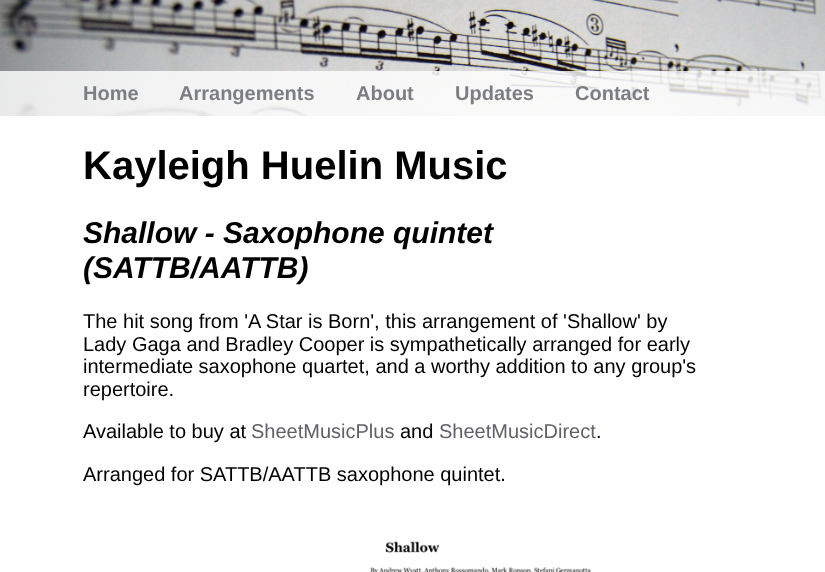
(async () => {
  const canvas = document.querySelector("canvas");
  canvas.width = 825;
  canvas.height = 572;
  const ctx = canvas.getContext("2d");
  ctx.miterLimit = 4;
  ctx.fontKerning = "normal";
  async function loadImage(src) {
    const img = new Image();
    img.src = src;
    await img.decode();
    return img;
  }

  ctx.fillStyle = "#ffffff";
  ctx.fillRect(0, 0, 825, 572);
  ctx.drawImage(await loadImage("img/1.png"), 0, 0, 825, 116);
  ctx.fillStyle = "rgba(255, 255, 255, 0.8)";
  ctx.fillRect(0, 71, 825, 45);
  ctx.drawImage(await loadImage("img/2.png"), 370, 541, 221, 31);
  ctx.font = "bold 20px Liberation Sans";
  ctx.fillStyle = "#7c7e82";
  for (const [text, x, y] of [
    ["Home", 83, 100],
    ["Arrangements", 179, 100],
    ["About", 356, 100],
    ["Updates", 455, 100],
    ["Contact", 575, 100],
  ]) {
    ctx.fillText(text, x, y);
  }
  ctx.font = "bold 40px Liberation Sans";
  ctx.fillStyle = "#000000";
  ctx.fillText("Kayleigh Huelin Music", 83, 179);
  ctx.font = "italic bold 30px Liberation Sans";
  ctx.fillText("Shallow - Saxophone quintet", 83, 243);
  ctx.fillText("(SATTB/AATTB)", 83, 278);
  ctx.font = "20px Liberation Sans";
  for (const [text, x, y] of [
    ["The hit song from 'A Star is Born', this arrangement of 'Shallow' by", 83, 328],
    ["Lady Gaga and Bradley Cooper is sympathetically arranged for early", 83, 351],
    ["intermediate saxophone quartet, and a worthy addition to any group's", 83, 373],
    ["repertoire.", 83, 396],
    ["Available to buy at", 83, 438],
  ]) {
    ctx.fillText(text, x, y);
  }
  ctx.fillStyle = "#5f6166";
  ctx.fillText("SheetMusicPlus", 251, 438);
  ctx.fillStyle = "#000000";
  ctx.fillText("and", 400, 438);
  ctx.fillStyle = "#5f6166";
  ctx.fillText("SheetMusicDirect", 439, 438);
  ctx.fillStyle = "#000000";
  ctx.fillText(".", 596, 438);
  ctx.fillText("Arranged for SATTB/AATTB saxophone quintet.", 83, 481);
})();
